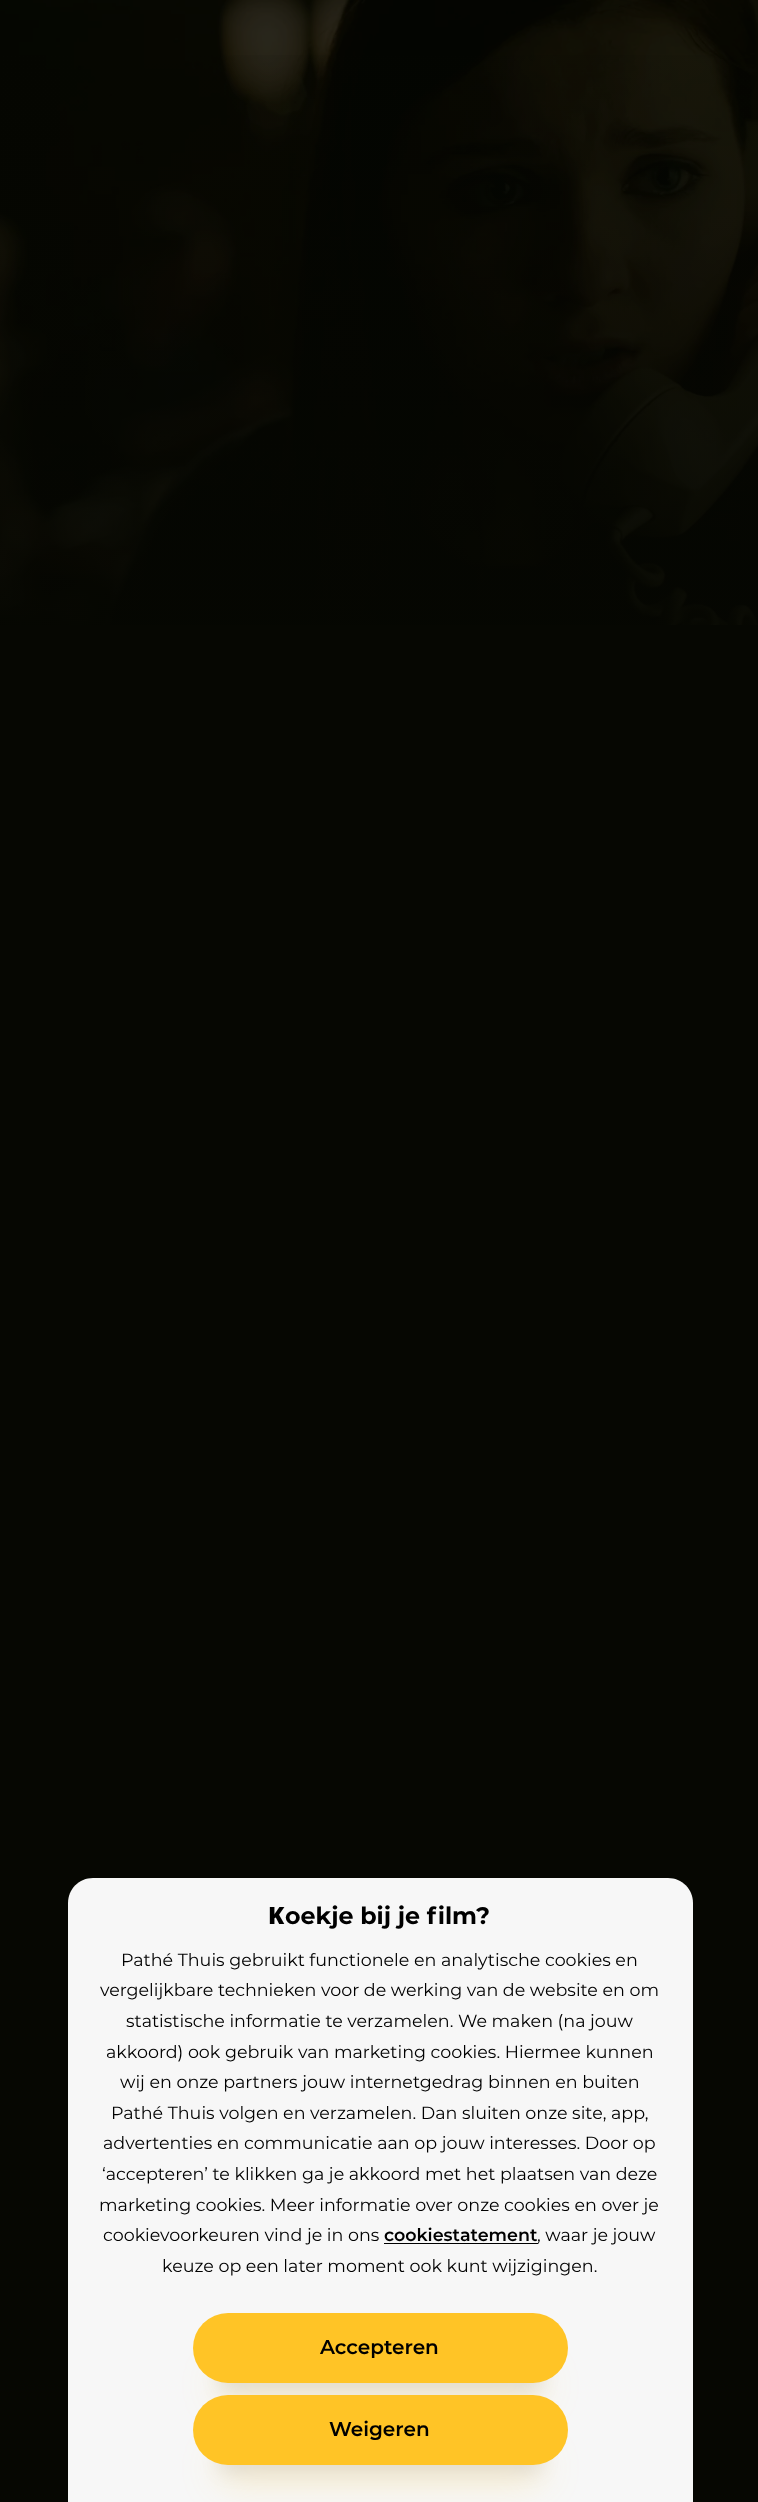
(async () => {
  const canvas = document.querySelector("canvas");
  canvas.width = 758;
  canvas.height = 2502;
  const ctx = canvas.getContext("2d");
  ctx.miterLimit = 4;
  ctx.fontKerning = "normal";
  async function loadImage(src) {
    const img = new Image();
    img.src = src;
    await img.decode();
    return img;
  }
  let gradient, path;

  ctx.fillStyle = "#060702";
  ctx.fillRect(0, 0, 758, 2502);
  ctx.drawImage(await loadImage("img/1.png"), 0, 0, 758, 625);
  gradient = ctx.createLinearGradient(379, 0, 379, 635);
  gradient.addColorStop(0, "rgba(6, 7, 2, 0)");
  gradient.addColorStop(1, "rgba(6, 7, 2, 0.75)");
  ctx.fillStyle = gradient;
  ctx.fillRect(0, 55, 758, 570);
  ctx.fillStyle = "#f7f7f7";
  path = new Path2D("M93 1878H668C682 1878 693 1889 693 1903V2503H68V1903C68 1889 79 1878 93 1878Z");
  ctx.fill(path);
  ctx.fillStyle = "#000000";
  ctx.fillRect(384, 2243, 154, 1);
  ctx.fillStyle = "rgba(255, 196, 38, 0.3)";
  ctx.filter = "blur(19px)";
  ctx.beginPath();
  ctx.roundRect(218, 2375, 325, 20, 10);
  ctx.fill();
  ctx.filter = "none";
  ctx.fillStyle = "rgba(0, 0, 0, 0.1)";
  ctx.filter = "blur(9.5px)";
  ctx.beginPath();
  ctx.roundRect(218, 2369, 325, 20, 10);
  ctx.fill();
  ctx.filter = "none";
  ctx.fillStyle = "#ffc426";
  ctx.beginPath();
  ctx.roundRect(193, 2313, 375, 70, 35);
  ctx.fill();
  ctx.fillStyle = "rgba(255, 196, 38, 0.3)";
  ctx.filter = "blur(19px)";
  ctx.beginPath();
  ctx.roundRect(218, 2458, 325, 20, 10);
  ctx.fill();
  ctx.filter = "none";
  ctx.fillStyle = "rgba(0, 0, 0, 0.1)";
  ctx.filter = "blur(9.5px)";
  ctx.beginPath();
  ctx.roundRect(218, 2451, 325, 20, 10);
  ctx.fill();
  ctx.filter = "none";
  ctx.fillStyle = "#ffc426";
  ctx.beginPath();
  ctx.roundRect(193, 2395, 375, 70, 35);
  ctx.fill();
  ctx.font = "900 23.75px Noto Sans";
  ctx.fillStyle = "#000000";
  ctx.fillText("K", 268, 1924);
  ctx.font = "bold 23.75px Montserrat";
  ctx.fillText("oekje bij je film?", 285, 1924);
  ctx.font = "17.5px Montserrat";
  for (const [text, x, y] of [
    ["Pathé Thuis gebruikt functionele en analytische cookies en", 121, 1966],
    ["vergelijkbare technieken voor de werking van de website en om", 100, 1996],
    ["statistische informatie te verzamelen. We maken (na jouw", 126, 2027],
    ["akkoord) ook gebruik van marketing cookies. Hiermee kunnen", 106, 2058],
    ["wij en onze partners jouw internetgedrag binnen en buiten", 120, 2088],
    ["Pathé Thuis volgen en verzamelen. Dan sluiten onze site, app,", 111, 2119],
    ["advertenties en communicatie aan op jouw interesses. Door op", 103, 2149],
    ["‘accepteren’ te klikken ga je akkoord met het plaatsen van deze", 102, 2180],
    ["marketing cookies. Meer informatie over onze cookies en over je", 99, 2211],
    ["cookievoorkeuren vind je in ons", 103, 2241],
  ]) {
    ctx.fillText(text, x, y);
  }
  ctx.font = "600 17.5px Montserrat";
  ctx.fillText("cookiestatement", 384, 2241);
  ctx.font = "17.5px Montserrat";
  ctx.fillText(", waar je jouw", 537, 2241);
  ctx.fillText("keuze op een later moment ook kunt wijzigingen.", 162, 2272);
  ctx.font = "600 20px Montserrat";
  ctx.fillText("Accepteren", 320, 2354);
  ctx.fillText("Weigeren", 329, 2436);
})();
